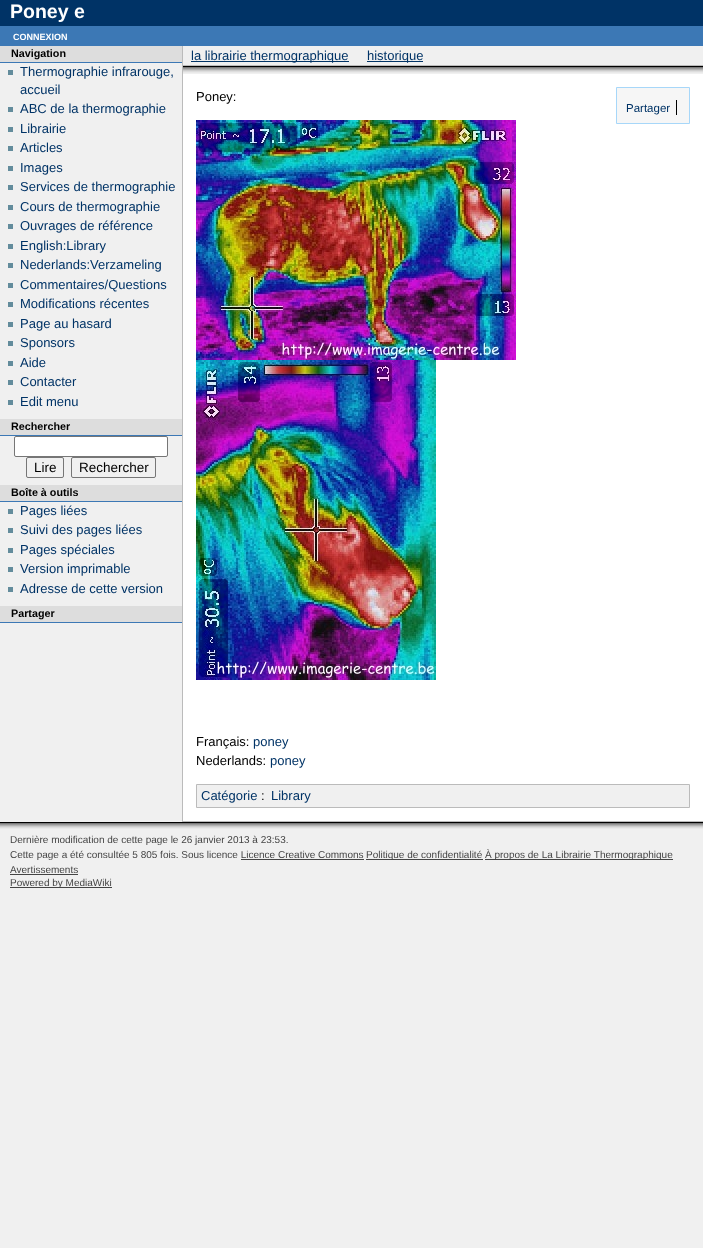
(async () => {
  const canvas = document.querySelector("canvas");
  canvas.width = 703;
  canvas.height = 1248;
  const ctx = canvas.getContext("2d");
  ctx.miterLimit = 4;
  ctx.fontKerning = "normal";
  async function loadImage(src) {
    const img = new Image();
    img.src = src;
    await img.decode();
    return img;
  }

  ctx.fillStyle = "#f0f0f0";
  ctx.fillRect(0, 0, 703, 1248);
  for (const [x, y, w, h, color] of [
    [0, 0, 703, 26, "#003366"],
    [0, 26, 703, 20, "#3c78b5"],
    [182, 46, 1, 19, "#bbbbbb"],
    [0, 46, 182, 16, "#dddddd"],
    [0, 62, 182, 1, "#3c78b5"],
    [8, 70, 5, 5, "#638c9c"],
    [8, 107, 5, 5, "#638c9c"],
    [8, 127, 5, 5, "#638c9c"],
    [8, 146, 5, 5, "#638c9c"],
    [8, 166, 5, 5, "#638c9c"],
    [8, 185, 5, 5, "#638c9c"],
    [8, 205, 5, 5, "#638c9c"],
    [8, 224, 5, 5, "#638c9c"],
    [8, 244, 5, 5, "#638c9c"],
    [8, 263, 5, 5, "#638c9c"],
    [8, 283, 5, 5, "#638c9c"],
    [8, 302, 5, 5, "#638c9c"],
    [8, 322, 5, 5, "#638c9c"],
    [8, 341, 5, 5, "#638c9c"],
    [8, 361, 5, 5, "#638c9c"],
    [8, 380, 5, 5, "#638c9c"],
    [8, 400, 5, 5, "#638c9c"],
    [0, 419, 182, 16, "#dddddd"],
    [0, 435, 182, 1, "#3c78b5"],
  ]) {
    ctx.fillStyle = color;
    ctx.fillRect(x, y, w, h);
  }
  ctx.fillStyle = "#ffffff";
  ctx.beginPath();
  ctx.roundRect(14.5, 436.5, 153, 20, 1.5);
  ctx.fill();
  ctx.strokeStyle = "#767676";
  ctx.stroke();
  ctx.beginPath();
  ctx.roundRect(26.5, 457.5, 37, 20, 1.5);
  ctx.stroke();
  ctx.beginPath();
  ctx.roundRect(71.5, 457.5, 84, 20, 1.5);
  ctx.stroke();
  for (const [x, y, w, h, color] of [
    [0, 485, 182, 16, "#dddddd"],
    [0, 501, 182, 1, "#3c78b5"],
    [8, 509, 5, 5, "#638c9c"],
    [8, 528, 5, 5, "#638c9c"],
    [8, 548, 5, 5, "#638c9c"],
    [8, 567, 5, 5, "#638c9c"],
    [8, 587, 5, 5, "#638c9c"],
    [0, 606, 182, 16, "#dddddd"],
    [0, 622, 182, 1, "#3c78b5"],
    [191, 61, 158, 1, "#003366"],
    [367, 61, 56, 1, "#003366"],
    [183, 74, 520, 747, "#ffffff"],
    [182, 65, 521, 1, "#bbbbbb"],
    [182, 821, 521, 1, "#bbbbbb"],
    [182, 65, 1, 757, "#bbbbbb"],
  ]) {
    ctx.fillStyle = color;
    ctx.fillRect(x, y, w, h);
  }
  ctx.drawImage(await loadImage("img/1.png"), 183, 66, 520, 8);
  ctx.fillStyle = "#f6f6f6";
  ctx.beginPath();
  ctx.rect(616.5, 87.5, 73, 36);
  ctx.fill();
  ctx.strokeStyle = "#a7d7f9";
  ctx.stroke();
  ctx.fillStyle = "#000000";
  ctx.fillRect(676, 100, 1, 15);
  ctx.drawImage(await loadImage("img/2.png"), 196, 120, 320, 240);
  ctx.drawImage(await loadImage("img/3.png"), 196, 360, 240, 320);
  ctx.fillStyle = "#f0f0f0";
  ctx.beginPath();
  ctx.rect(196.5, 784.5, 493, 23);
  ctx.fill();
  ctx.strokeStyle = "#bbbbbb";
  ctx.stroke();
  ctx.drawImage(await loadImage("img/4.png"), 0, 822, 703, 7);
  for (const [x, y, w, h, color] of [
    [366, 859, 117, 1, "#444444"],
    [485, 859, 188, 1, "#444444"],
    [241, 859, 123, 1, "#444444"],
    [10, 874, 68, 1, "#444444"],
    [10, 887, 102, 1, "#444444"],
  ]) {
    ctx.fillStyle = color;
    ctx.fillRect(x, y, w, h);
  }
  ctx.font = "bold 19.5px Liberation Sans";
  ctx.fillStyle = "#ffffff";
  ctx.fillText("Poney e", 10, 18);
  ctx.font = "bold 9px Liberation Sans";
  ctx.fillText("CONNEXION", 13, 40);
  ctx.font = "bold 10.75px Liberation Sans";
  ctx.fillStyle = "#000000";
  ctx.fillText("Navigation", 11, 57);
  ctx.font = "13px Liberation Sans";
  ctx.fillStyle = "#003366";
  for (const [text, x, y] of [
    ["Thermographie infrarouge,", 20, 76],
    ["accueil", 20, 94],
    ["ABC de la thermographie", 20, 113],
    ["Librairie", 20, 133],
    ["Articles", 20, 152],
    ["Images", 20, 172],
    ["Services de thermographie", 20, 191],
    ["Cours de thermographie", 20, 211],
    ["Ouvrages de référence", 20, 230],
    ["English:Library", 20, 250],
    ["Nederlands:Verzameling", 20, 269],
    ["Commentaires/Questions", 20, 289],
    ["Modifications récentes", 20, 308],
    ["Page au hasard", 20, 328],
    ["Sponsors", 20, 347],
    ["Aide", 20, 367],
    ["Contacter", 20, 386],
    ["Edit menu", 20, 406],
  ]) {
    ctx.fillText(text, x, y);
  }
  ctx.font = "bold 10.75px Liberation Sans";
  ctx.fillStyle = "#000000";
  ctx.fillText("Rechercher", 11, 430);
  ctx.font = "13.5px Liberation Sans";
  ctx.fillText("Lire", 34, 472);
  ctx.fillText("Rechercher", 79, 472);
  ctx.font = "bold 10.75px Liberation Sans";
  ctx.fillText("Boîte à outils", 11, 496);
  ctx.font = "13px Liberation Sans";
  ctx.fillStyle = "#003366";
  for (const [text, x, y] of [
    ["Pages liées", 20, 515],
    ["Suivi des pages liées", 20, 534],
    ["Pages spéciales", 20, 554],
    ["Version imprimable", 20, 573],
    ["Adresse de cette version", 20, 593],
  ]) {
    ctx.fillText(text, x, y);
  }
  ctx.font = "bold 10.75px Liberation Sans";
  ctx.fillStyle = "#000000";
  ctx.fillText("Partager", 11, 617);
  ctx.font = "13px Liberation Sans";
  ctx.fillStyle = "#003366";
  ctx.fillText("la librairie thermographique", 191, 60);
  ctx.fillText("historique", 367, 60);
  ctx.fillStyle = "#000000";
  ctx.fillText("Poney:", 196, 101);
  ctx.font = "11.5px Liberation Sans";
  ctx.fillStyle = "#003366";
  ctx.fillText("Partager", 626, 112);
  ctx.font = "13px Liberation Sans";
  ctx.fillStyle = "#000000";
  ctx.fillText("Français:", 196, 746);
  ctx.fillStyle = "#003366";
  ctx.fillText("poney", 253, 746);
  ctx.fillStyle = "#000000";
  ctx.fillText("Nederlands:", 196, 765);
  ctx.fillStyle = "#003366";
  ctx.fillText("poney", 270, 765);
  ctx.fillText("Catégorie", 201, 800);
  ctx.fillStyle = "#000000";
  ctx.fillText(":", 261, 800);
  ctx.fillStyle = "#003366";
  ctx.fillText("Library", 271, 800);
  ctx.font = "10px Liberation Sans";
  ctx.fillStyle = "#444444";
  for (const [text, x, y] of [
    ["Dernière modification de cette page le 26 janvier 2013 à 23:53.", 10, 843],
    ["Cette page a été consultée 5 805 fois. Sous licence Licence Creative Commons", 10, 858],
    ["Politique de confidentialité", 366, 858],
    ["À propos de La Librairie Thermographique", 485, 858],
    ["Avertissements", 10, 873],
    ["Powered by MediaWiki", 10, 886],
  ]) {
    ctx.fillText(text, x, y);
  }
})();
